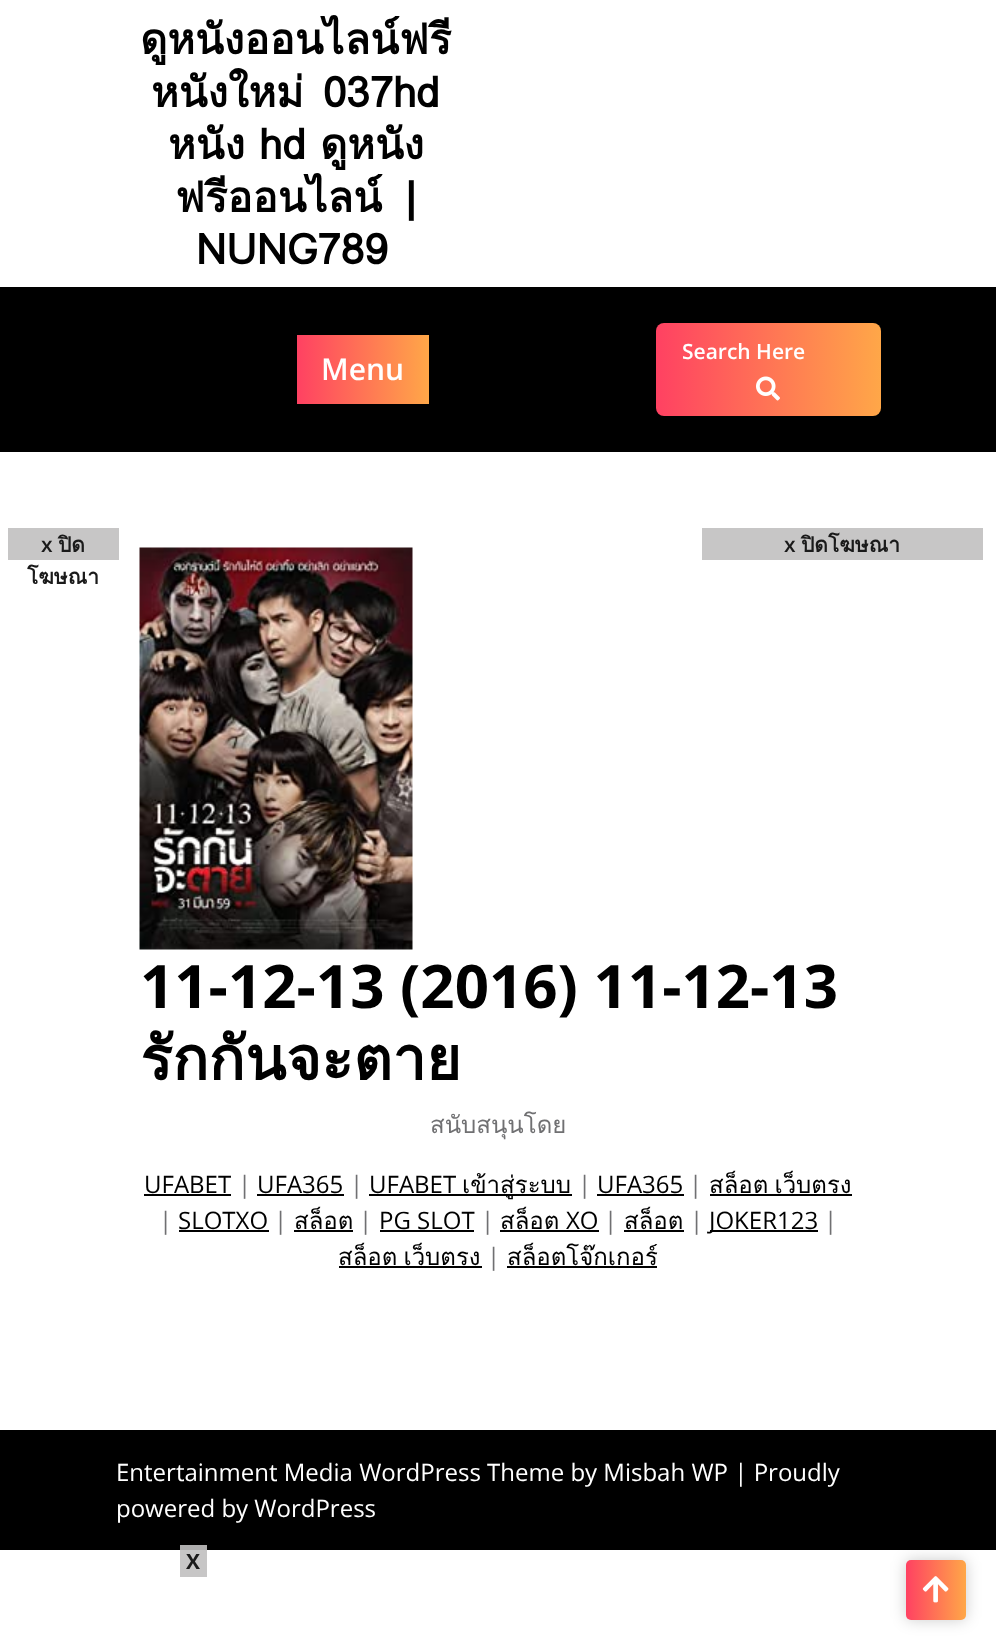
(async () => {
  const canvas = document.querySelector("canvas");
  canvas.width = 996;
  canvas.height = 1637;
  const ctx = canvas.getContext("2d");
  ctx.miterLimit = 4;
  ctx.fontKerning = "normal";
  async function loadImage(src) {
    const img = new Image();
    img.src = src;
    await img.decode();
    return img;
  }
  let gradient;

  ctx.fillStyle = "#ffffff";
  ctx.fillRect(0, 0, 996, 1637);
  ctx.fillStyle = "#c7c6c6";
  ctx.fillRect(180, 1550, 27, 27);
  ctx.fillStyle = "#000000";
  ctx.fillRect(0, 287, 996, 165);
  gradient = ctx.createLinearGradient(656, 369, 881, 369);
  gradient.addColorStop(0, "#ff4162");
  gradient.addColorStop(1, "#ffa748");
  ctx.fillStyle = gradient;
  ctx.beginPath();
  ctx.roundRect(656, 323, 225, 93, 8);
  ctx.fill();
  ctx.drawImage(await loadImage("img/1.png"), 756, 376, 24, 25);
  gradient = ctx.createLinearGradient(297, 369, 429, 369);
  gradient.addColorStop(0, "#ff4162");
  gradient.addColorStop(1, "#ffa748");
  ctx.fillStyle = gradient;
  ctx.fillRect(297, 335, 132, 69);
  ctx.fillStyle = "#c7c6c6";
  ctx.fillRect(8, 528, 111, 32);
  ctx.fillRect(702, 528, 281, 32);
  ctx.drawImage(await loadImage("img/2.png"), 139, 547, 274, 403);
  for (const [x, y, w, h, color] of [
    [144, 1194, 87, 2, "#000000"],
    [257, 1194, 87, 2, "#000000"],
    [369, 1194, 203, 2, "#000000"],
    [597, 1194, 87, 2, "#000000"],
    [710, 1194, 142, 2, "#000000"],
    [179, 1230, 90, 2, "#000000"],
    [294, 1230, 59, 2, "#000000"],
    [380, 1230, 94, 2, "#000000"],
    [500, 1230, 99, 2, "#000000"],
    [624, 1230, 60, 2, "#000000"],
    [710, 1230, 108, 2, "#000000"],
    [339, 1266, 143, 2, "#000000"],
    [507, 1266, 150, 2, "#000000"],
    [0, 1430, 996, 120, "#000000"],
    [180, 1545, 27, 5, "#aeadad"],
  ]) {
    ctx.fillStyle = color;
    ctx.fillRect(x, y, w, h);
  }
  ctx.fillStyle = "rgba(0, 0, 0, 0.2)";
  ctx.filter = "blur(7.5px)";
  ctx.beginPath();
  ctx.roundRect(906, 1560, 60, 60, 5);
  ctx.fill();
  ctx.filter = "none";
  gradient = ctx.createLinearGradient(906, 1590, 966, 1590);
  gradient.addColorStop(0, "#ff4162");
  gradient.addColorStop(1, "#ffa748");
  ctx.fillStyle = gradient;
  ctx.beginPath();
  ctx.roundRect(906, 1560, 60, 60, 5);
  ctx.fill();
  ctx.drawImage(await loadImage("img/3.png"), 922, 1576, 27, 27);
  ctx.font = "bold 42px Loma";
  ctx.fillStyle = "#000000";
  ctx.fillText("ดูหนังออนไลน์ฟรี", 140, 54);
  ctx.wordSpacing = "5px";
  ctx.fillText("หนังใหม่ 037hd", 151, 107);
  ctx.wordSpacing = "0px";
  ctx.fillText("หนัง hd ดูหนัง", 168, 159);
  ctx.wordSpacing = "9px";
  ctx.fillText("ฟรีออนไลน์ |", 175, 212);
  ctx.wordSpacing = "0px";
  ctx.fillText("NUNG789", 196, 264);
  ctx.save();
  ctx.beginPath();
  ctx.rect(683, 336, 166, 29);
  ctx.clip();
  ctx.font = "600 21px Open Sans";
  ctx.fillStyle = "#ffffff";
  ctx.fillText("Search Here", 682, 359);
  ctx.restore();
  ctx.font = "600 30px Open Sans";
  ctx.fillStyle = "#ffffff";
  ctx.fillText("Menu", 321, 380);
  ctx.font = "600 21px Open Sans";
  ctx.fillStyle = "#1a1a1a";
  ctx.fillText("x", 41, 552);
  ctx.font = "bold 21px Loma";
  ctx.fillText("ปิด", 58, 552);
  ctx.fillText("โฆษณา", 27, 584);
  ctx.font = "600 21px Open Sans";
  ctx.fillText("x", 784, 552);
  ctx.font = "bold 21px Loma";
  ctx.fillText("ปิดโฆษณา", 801, 552);
  ctx.font = "bold 21px Open Sans";
  ctx.fillText("X", 186, 1569);
  ctx.font = "bold 60px Open Sans";
  ctx.fillStyle = "#000000";
  ctx.fillText("11-12-13 (2016) 11-12-13", 140, 1008);
  ctx.font = "bold 60px Loma";
  ctx.fillText("รักกันจะตาย", 140, 1080);
  ctx.font = "24px Loma";
  ctx.fillStyle = "#707072";
  ctx.fillText("สนับสนุนโดย", 430, 1133);
  ctx.font = "24px Open Sans";
  ctx.fillStyle = "#000000";
  ctx.fillText("UFABET", 144, 1193);
  ctx.fillStyle = "#707072";
  ctx.fillText("|", 238, 1193);
  ctx.fillStyle = "#000000";
  ctx.fillText("UFA365", 257, 1193);
  ctx.fillStyle = "#707072";
  ctx.fillText("|", 350, 1193);
  ctx.fillStyle = "#000000";
  ctx.fillText("UFABET", 369, 1193);
  ctx.font = "24px Loma";
  ctx.fillText("เข้าสู่ระบบ", 462, 1193);
  ctx.font = "24px Open Sans";
  ctx.fillStyle = "#707072";
  ctx.fillText("|", 578, 1193);
  ctx.fillStyle = "#000000";
  ctx.fillText("UFA365", 597, 1193);
  ctx.fillStyle = "#707072";
  ctx.fillText("|", 689, 1193);
  ctx.wordSpacing = "-2px";
  ctx.font = "24px Loma";
  ctx.fillStyle = "#000000";
  ctx.fillText("สล็อต เว็บตรง", 709, 1193);
  ctx.wordSpacing = "0px";
  ctx.font = "24px Open Sans";
  ctx.fillStyle = "#707072";
  ctx.fillText("|", 159, 1229);
  ctx.fillStyle = "#000000";
  ctx.fillText("SLOTXO", 178, 1229);
  ctx.fillStyle = "#707072";
  ctx.fillText("|", 274, 1229);
  ctx.font = "24px Loma";
  ctx.fillStyle = "#000000";
  ctx.fillText("สล็อต", 294, 1229);
  ctx.font = "24px Open Sans";
  ctx.fillStyle = "#707072";
  ctx.fillText("|", 359, 1229);
  ctx.fillStyle = "#000000";
  ctx.fillText("PG SLOT", 379, 1229);
  ctx.fillStyle = "#707072";
  ctx.fillText("|", 481, 1229);
  ctx.font = "24px Loma";
  ctx.fillStyle = "#000000";
  ctx.fillText("สล็อต", 500, 1229);
  ctx.font = "24px Open Sans";
  ctx.fillText("XO", 566, 1229);
  ctx.fillStyle = "#707072";
  ctx.fillText("|", 604, 1229);
  ctx.font = "24px Loma";
  ctx.fillStyle = "#000000";
  ctx.fillText("สล็อต", 624, 1229);
  ctx.font = "24px Open Sans";
  ctx.fillStyle = "#707072";
  ctx.fillText("|", 690, 1229);
  ctx.fillStyle = "#000000";
  ctx.fillText("JOKER123", 709, 1229);
  ctx.fillStyle = "#707072";
  ctx.fillText("|", 824, 1229);
  ctx.wordSpacing = "-2px";
  ctx.font = "24px Loma";
  ctx.fillStyle = "#000000";
  ctx.fillText("สล็อต เว็บตรง", 338, 1265);
  ctx.wordSpacing = "0px";
  ctx.font = "24px Open Sans";
  ctx.fillStyle = "#707072";
  ctx.fillText("|", 487, 1265);
  ctx.font = "24px Loma";
  ctx.fillStyle = "#000000";
  ctx.fillText("สล็อตโจ๊กเกอร์", 507, 1265);
  ctx.font = "24px Open Sans";
  ctx.fillStyle = "#ffffff";
  ctx.fillText("Entertainment Media WordPress Theme by Misbah WP | Proudly", 116, 1481);
  ctx.fillText("powered by WordPress", 116, 1517);
})();
